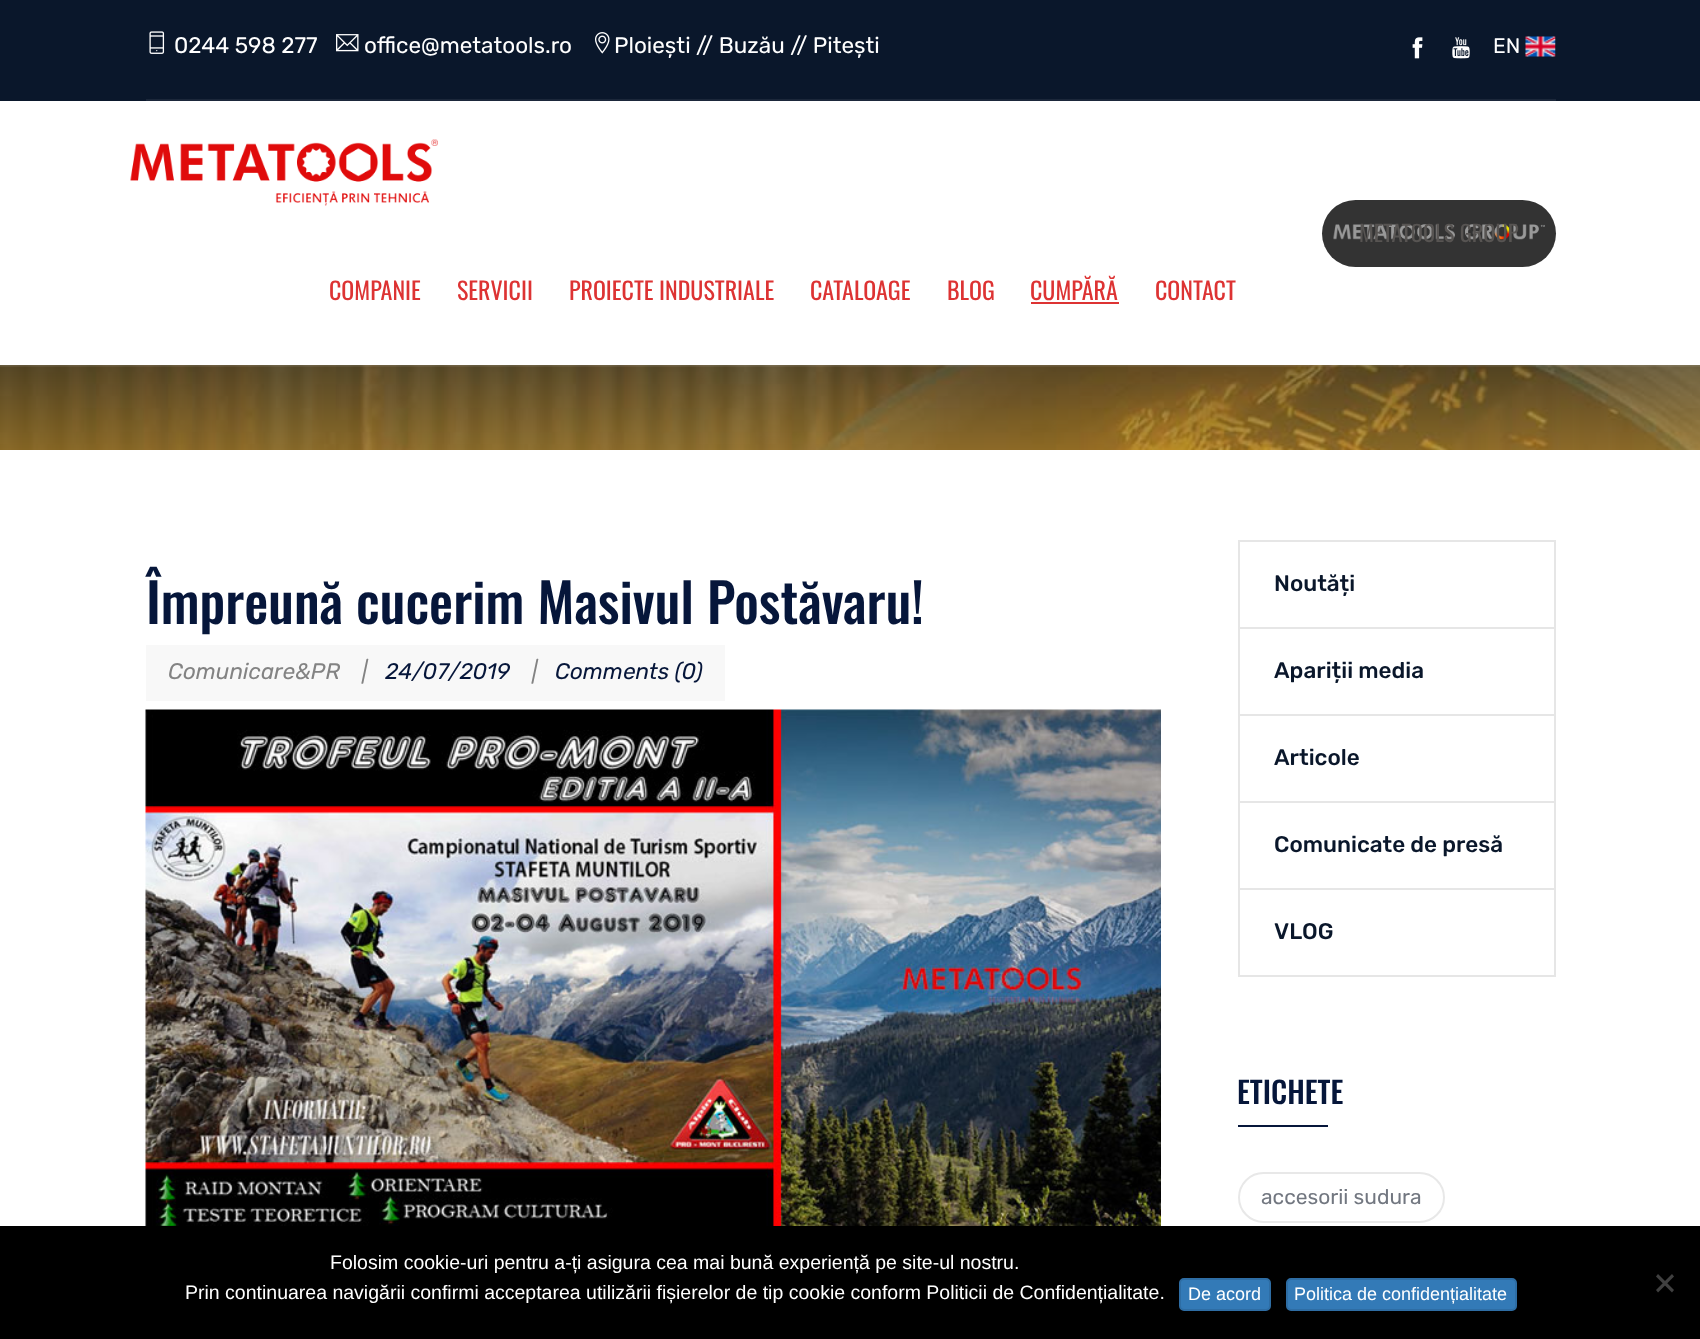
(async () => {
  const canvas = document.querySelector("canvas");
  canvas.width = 1700;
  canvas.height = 1339;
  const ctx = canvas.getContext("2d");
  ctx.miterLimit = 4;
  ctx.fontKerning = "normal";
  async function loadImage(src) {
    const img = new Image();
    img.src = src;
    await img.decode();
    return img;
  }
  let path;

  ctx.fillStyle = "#ffffff";
  ctx.fillRect(0, 0, 1700, 1339);
  ctx.drawImage(await loadImage("img/9.png"), 0, 365, 1700, 85);
  for (const [x, y, w, h, color] of [
    [0, 365, 1700, 1, "rgba(255, 255, 255, 0.05)"],
    [0, 365, 1700, 2, "rgba(255, 255, 255, 0.07)"],
    [0, 0, 1700, 101, "#0a172b"],
  ]) {
    ctx.fillStyle = color;
    ctx.fillRect(x, y, w, h);
  }
  ctx.drawImage(await loadImage("img/1.png"), 149, 31, 16, 23);
  ctx.drawImage(await loadImage("img/2.png"), 336, 34, 23, 18);
  ctx.drawImage(await loadImage("img/3.png"), 595, 32, 15, 22);
  ctx.drawImage(await loadImage("img/4.png"), 1412, 37, 11, 22);
  ctx.drawImage(await loadImage("img/5.png"), 1452, 37, 18, 22);
  ctx.drawImage(await loadImage("img/6.png"), 1525, 36, 31, 21);
  ctx.fillStyle = "#1b273a";
  ctx.fillRect(146, 99, 1410, 2);
  ctx.drawImage(await loadImage("img/7.png"), 130, 139, 308, 67);
  ctx.fillStyle = "#333333";
  ctx.beginPath();
  ctx.roundRect(1322, 200, 234, 67, 33.5);
  ctx.fill();
  ctx.drawImage(await loadImage("img/8.png"), 1333, 224, 212, 16);
  ctx.fillStyle = "#dd3333";
  ctx.fillRect(1031, 302, 88, 2);
  ctx.fillStyle = "#f8f8f8";
  ctx.fillRect(146, 645, 579, 56);
  ctx.drawImage(await loadImage("img/10.png"), 145, 709, 1016, 517);
  for (const [x, y, w, h, color] of [
    [1238, 540, 318, 2, "#e6e6e6"],
    [1554, 540, 2, 437, "#e6e6e6"],
    [1238, 540, 2, 437, "#e6e6e6"],
    [1239, 627, 315, 2, "#e6e6e6"],
    [1239, 714, 315, 2, "#e6e6e6"],
    [1239, 801, 315, 2, "#e6e6e6"],
    [1239, 888, 315, 2, "#e6e6e6"],
    [1239, 975, 315, 2, "#e6e6e6"],
    [1238, 1125, 90, 2, "#06163a"],
  ]) {
    ctx.fillStyle = color;
    ctx.fillRect(x, y, w, h);
  }
  ctx.beginPath();
  ctx.roundRect(1239, 1173, 205, 49, 24.5);
  ctx.strokeStyle = "#e8e8e8";
  ctx.lineWidth = 2;
  ctx.stroke();
  ctx.fillStyle = "#000000";
  ctx.fillRect(0, 1226, 1700, 113);
  ctx.fillStyle = "#404040";
  path = new Path2D("M1672 1274L1674 1276.5L1658 1292.5L1656 1290Z");
  ctx.fill(path);
  path = new Path2D("M1656 1276.5L1658 1274L1674 1290L1672 1292.5Z");
  ctx.fill(path);
  ctx.fillStyle = "#337ab7";
  ctx.beginPath();
  ctx.roundRect(1180, 1279, 90, 31, 4);
  ctx.fill();
  ctx.strokeStyle = "#2e6da4";
  ctx.stroke();
  ctx.beginPath();
  ctx.roundRect(1287, 1279, 229, 31, 4);
  ctx.fill();
  ctx.stroke();
  ctx.font = "22.5px Rubik";
  ctx.fillStyle = "#ffffff";
  for (const [text, x, y] of [
    ["0244 598 277", 174, 53],
    ["office@metatools.ro", 364, 53],
    ["Ploiești // Buzău // Pitești", 614, 53],
  ]) {
    ctx.fillText(text, x, y);
  }
  ctx.font = "21px Rubik";
  ctx.fillText("EN", 1493, 53);
  ctx.font = "22.5px Oswald";
  ctx.fillStyle = "#575452";
  ctx.fillText("METATOOLS GROUP", 1359, 242);
  ctx.font = "24px Oswald";
  ctx.fillStyle = "#dd3333";
  for (const [text, x, y] of [
    ["COMPANIE", 329, 300],
    ["SERVICII", 457, 300],
    ["PROIECTE INDUSTRIALE", 569, 300],
    ["CATALOAGE", 810, 300],
    ["BLOG", 947, 300],
    ["CUMPĂRĂ", 1030, 300],
    ["CONTACT", 1155, 300],
  ]) {
    ctx.fillText(text, x, y);
  }
  ctx.font = "500 54px Oswald";
  ctx.fillStyle = "#06163a";
  ctx.fillText("Împreună cucerim Masivul Postăvaru!", 146, 624);
  ctx.font = "italic 300 22.5px Rubik";
  ctx.fillStyle = "#838383";
  ctx.fillText("Comunicare&PR", 168, 679);
  ctx.fillText("|", 362, 679);
  ctx.fillStyle = "#06163a";
  ctx.fillText("24/07/2019", 385, 679);
  ctx.fillStyle = "#838383";
  ctx.fillText("|", 532, 679);
  ctx.fillStyle = "#06163a";
  ctx.fillText("Comments (0)", 555, 679);
  ctx.font = "500 22.5px Rubik";
  ctx.fillStyle = "#0a172b";
  for (const [text, x, y] of [
    ["Noutăți", 1274, 591],
    ["Apariții media", 1274, 678],
    ["Articole", 1274, 765],
    ["Comunicate de presă", 1274, 852],
    ["VLOG", 1274, 939],
  ]) {
    ctx.fillText(text, x, y);
  }
  ctx.font = "500 30px Oswald";
  ctx.fillStyle = "#06163a";
  ctx.fillText("ETICHETE", 1237, 1104);
  ctx.font = "21px Rubik";
  ctx.fillStyle = "#727780";
  ctx.fillText("accesorii sudura", 1261, 1204);
  ctx.font = "19.5px Liberation Sans";
  ctx.fillStyle = "#ffffff";
  ctx.fillText("Folosim cookie-uri pentru a-ți asigura cea mai bună experiență pe site-ul nostru.", 330, 1269);
  ctx.fillText("Prin continuarea navigării confirmi acceptarea utilizării fișierelor de tip cookie conform Politicii de Confidențialitate.", 185, 1299);
  ctx.font = "18px Liberation Sans";
  ctx.fillText("De acord", 1188, 1300);
  ctx.fillText("Politica de confidențialitate", 1294, 1300);
})();
